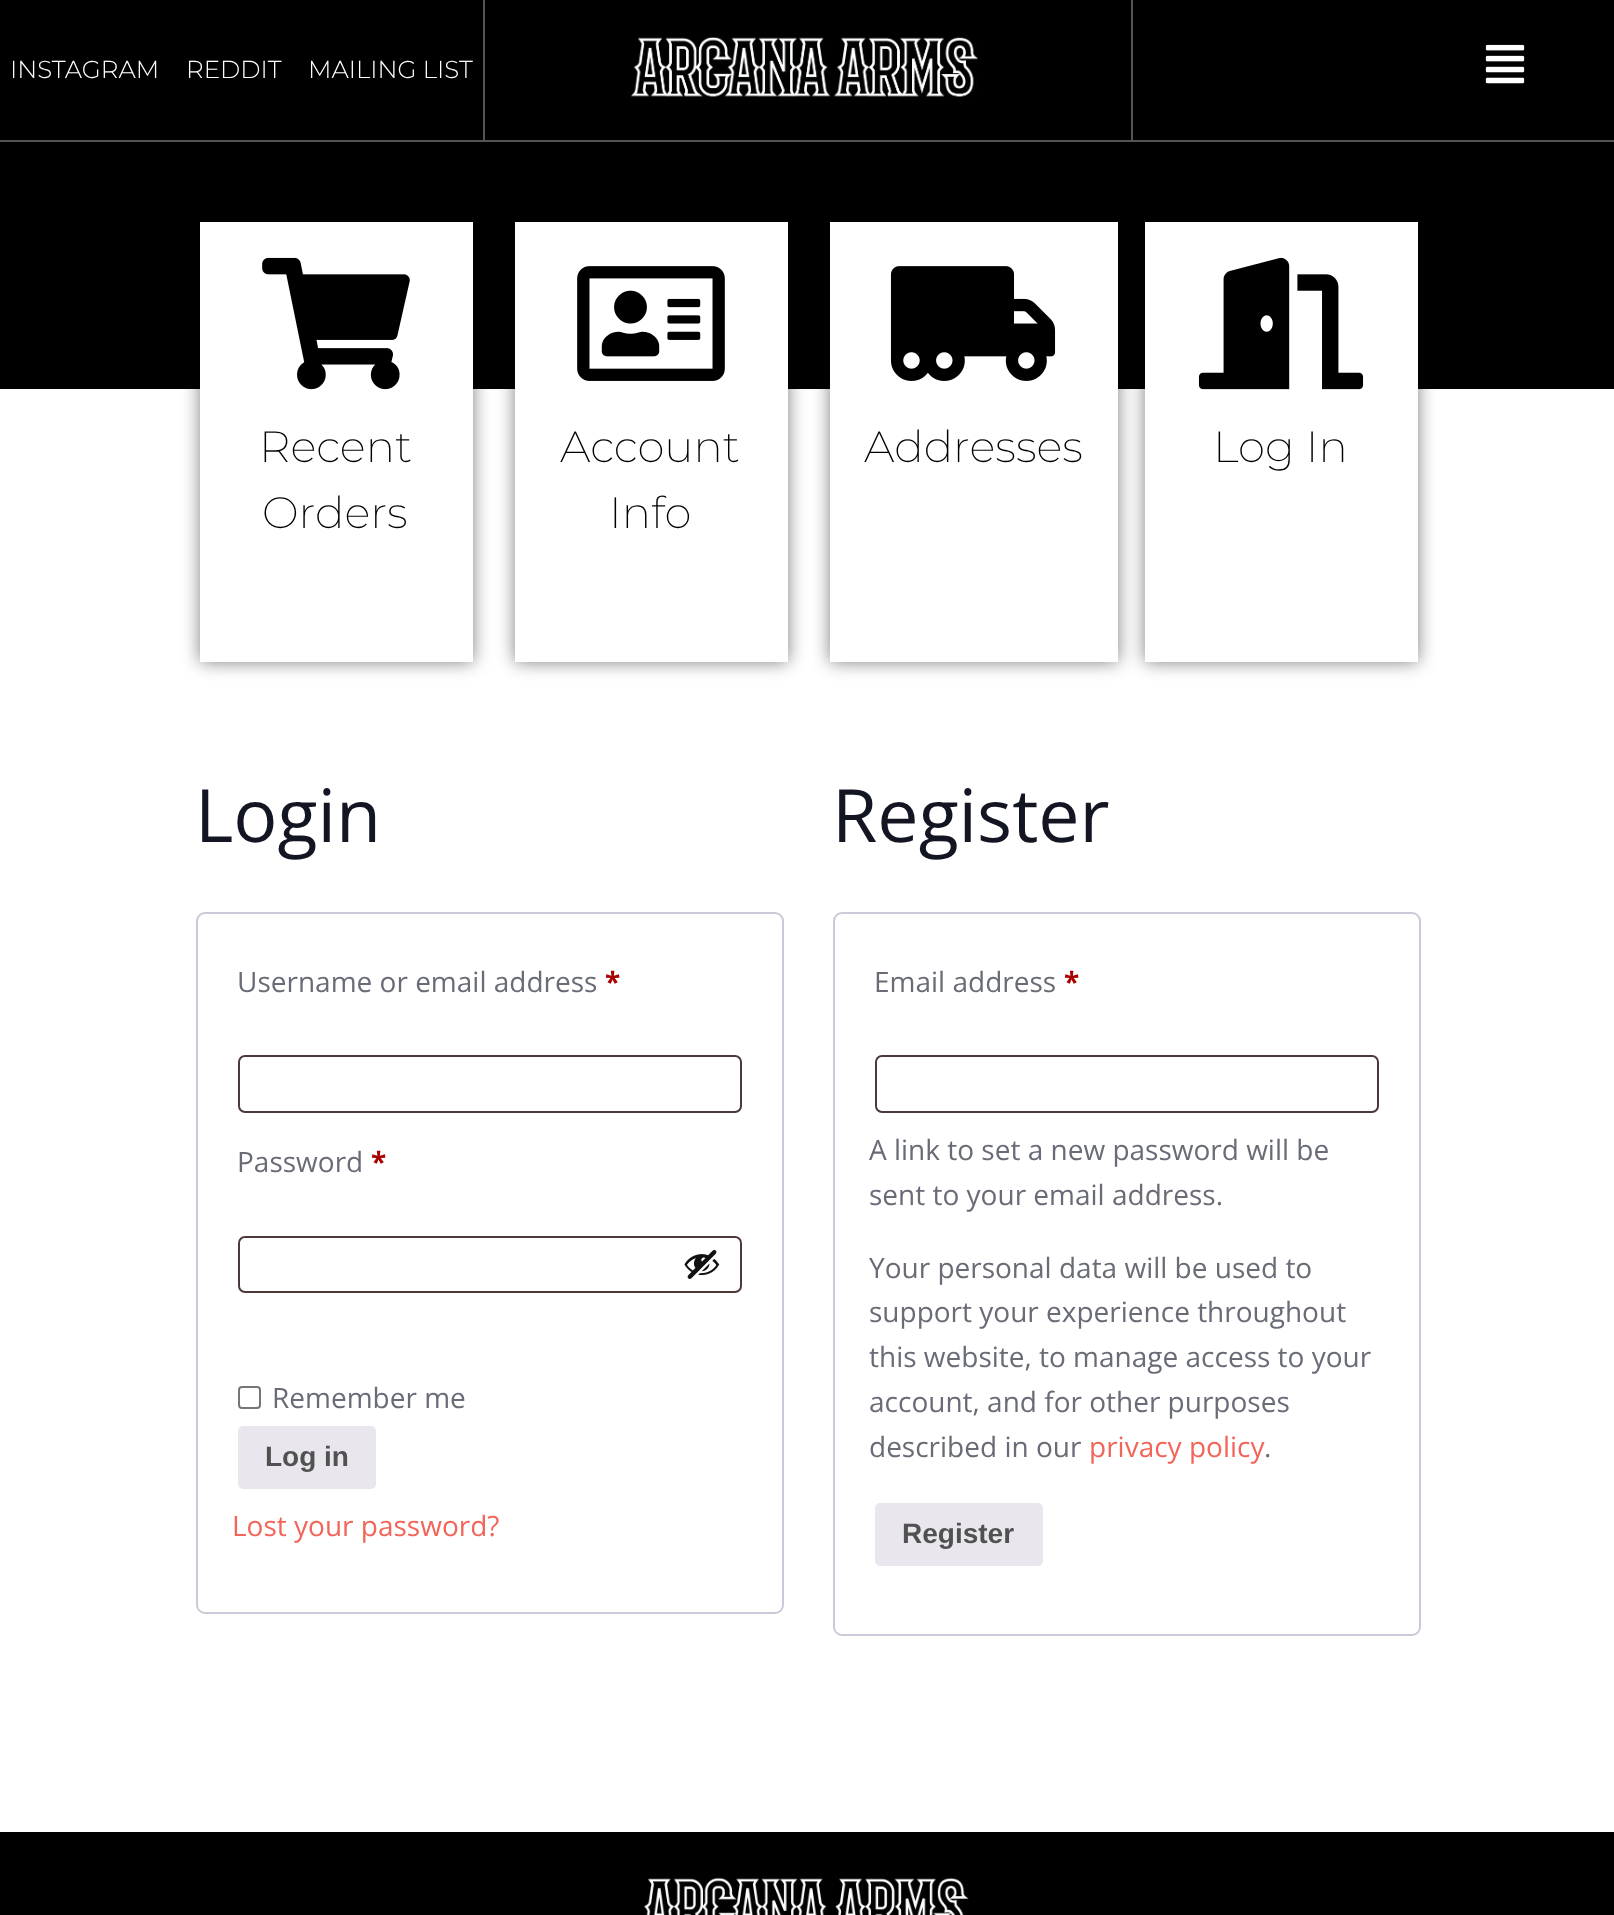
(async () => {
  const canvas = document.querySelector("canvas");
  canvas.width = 1614;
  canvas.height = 1915;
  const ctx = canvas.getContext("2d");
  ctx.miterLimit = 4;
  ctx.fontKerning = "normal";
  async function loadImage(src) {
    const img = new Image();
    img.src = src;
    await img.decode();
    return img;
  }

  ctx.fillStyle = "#ffffff";
  ctx.fillRect(0, 0, 1614, 1915);
  for (const [x, y, w, h, color] of [
    [0, 0, 1614, 140, "#000000"],
    [0, 140, 1614, 2, "#545454"],
    [483, 0, 2, 140, "#545454"],
  ]) {
    ctx.fillStyle = color;
    ctx.fillRect(x, y, w, h);
  }
  ctx.drawImage(await loadImage("img/1.png"), 631, 37, 347, 60);
  ctx.fillRect(1131, 0, 2, 140);
  ctx.drawImage(await loadImage("img/2.png"), 1485, 44, 40, 40);
  ctx.fillStyle = "#000000";
  ctx.fillRect(0, 142, 1614, 247);
  ctx.fillStyle = "rgba(0, 0, 0, 0.5)";
  ctx.filter = "blur(9px)";
  ctx.beginPath();
  ctx.rect(200, 222, 273, 440);
  ctx.fill();
  ctx.filter = "none";
  ctx.fillStyle = "#ffffff";
  ctx.fillRect(200, 222, 273, 440);
  ctx.drawImage(await loadImage("img/3.png"), 262, 257, 148, 133);
  ctx.fillStyle = "rgba(0, 0, 0, 0.5)";
  ctx.filter = "blur(9px)";
  ctx.beginPath();
  ctx.rect(515, 222, 273, 440);
  ctx.fill();
  ctx.filter = "none";
  ctx.fillStyle = "#ffffff";
  ctx.fillRect(515, 222, 273, 440);
  ctx.drawImage(await loadImage("img/4.png"), 577, 266, 148, 115);
  ctx.fillStyle = "rgba(0, 0, 0, 0.5)";
  ctx.filter = "blur(9px)";
  ctx.beginPath();
  ctx.rect(830, 222, 288, 440);
  ctx.fill();
  ctx.filter = "none";
  ctx.fillStyle = "#ffffff";
  ctx.fillRect(830, 222, 288, 440);
  ctx.drawImage(await loadImage("img/5.png"), 890, 266, 166, 115);
  ctx.fillStyle = "rgba(0, 0, 0, 0.5)";
  ctx.filter = "blur(9px)";
  ctx.beginPath();
  ctx.rect(1145, 222, 273, 440);
  ctx.fill();
  ctx.filter = "none";
  ctx.fillStyle = "#ffffff";
  ctx.fillRect(1145, 222, 273, 440);
  ctx.drawImage(await loadImage("img/6.png"), 1198, 257, 166, 133);
  ctx.beginPath();
  ctx.roundRect(197, 913, 586, 700, 8);
  ctx.strokeStyle = "#cfc8d8";
  ctx.lineWidth = 2;
  ctx.stroke();
  ctx.beginPath();
  ctx.roundRect(239, 1056, 502, 56, 6);
  ctx.strokeStyle = "#4d3939";
  ctx.stroke();
  ctx.beginPath();
  ctx.roundRect(239, 1237, 502, 55, 6);
  ctx.stroke();
  ctx.drawImage(await loadImage("img/7.png"), 684, 1250, 36, 29);
  ctx.beginPath();
  ctx.roundRect(239, 1387, 21, 21, 3);
  ctx.strokeStyle = "#767676";
  ctx.stroke();
  ctx.fillStyle = "#e9e6ed";
  ctx.beginPath();
  ctx.roundRect(238, 1426, 138, 63, 5);
  ctx.fill();
  ctx.beginPath();
  ctx.roundRect(834, 913, 586, 722, 8);
  ctx.strokeStyle = "#cfc8d8";
  ctx.stroke();
  ctx.beginPath();
  ctx.roundRect(876, 1056, 502, 56, 6);
  ctx.strokeStyle = "#4d3939";
  ctx.stroke();
  ctx.beginPath();
  ctx.roundRect(875, 1503, 168, 63, 5);
  ctx.fill();
  ctx.fillStyle = "#000000";
  ctx.fillRect(0, 1832, 1614, 83);
  ctx.drawImage(await loadImage("img/8.png"), 644, 1877, 325, 38);
  ctx.font = "300 24.5px Montserrat";
  ctx.fillStyle = "#ffffff";
  for (const [text, x, y] of [
    ["INSTAGRAM", 10, 78],
    ["REDDIT", 186, 78],
    ["MAILING LIST", 308, 78],
  ]) {
    ctx.fillText(text, x, y);
  }
  ctx.font = "200 43.75px Montserrat";
  ctx.fillStyle = "#000000";
  for (const [text, x, y] of [
    ["Recent", 259, 462],
    ["Orders", 262, 528],
    ["Account", 560, 462],
    ["Info", 609, 528],
    ["Addresses", 864, 462],
    ["Log In", 1213, 462],
  ]) {
    ctx.fillText(text, x, y);
  }
  ctx.font = "73.5px Open Sans";
  ctx.fillStyle = "#131622";
  ctx.fillText("Login", 195, 842);
  ctx.font = "28px Open Sans";
  ctx.fillStyle = "#696c77";
  ctx.fillText("Username or email address", 237, 992);
  ctx.font = "bold 28px Open Sans";
  ctx.fillStyle = "#aa0000";
  ctx.fillText("*", 605, 992);
  ctx.font = "28px Open Sans";
  ctx.fillStyle = "#696c77";
  ctx.fillText("Password", 237, 1172);
  ctx.font = "bold 28px Open Sans";
  ctx.fillStyle = "#aa0000";
  ctx.fillText("*", 371, 1172);
  ctx.font = "28px Open Sans";
  ctx.fillStyle = "#696c77";
  ctx.fillText("Remember me", 272, 1408);
  ctx.font = "bold 28px Liberation Sans";
  ctx.fillStyle = "#515151";
  ctx.fillText("Log in", 265, 1466);
  ctx.font = "28px Open Sans";
  ctx.fillStyle = "#f26559";
  ctx.fillText("Lost your password?", 232, 1536);
  ctx.font = "73.5px Open Sans";
  ctx.fillStyle = "#131622";
  ctx.fillText("Register", 832, 842);
  ctx.font = "28px Open Sans";
  ctx.fillStyle = "#696c77";
  ctx.fillText("Email address", 874, 992);
  ctx.font = "bold 28px Open Sans";
  ctx.fillStyle = "#aa0000";
  ctx.fillText("*", 1064, 992);
  ctx.font = "28px Open Sans";
  ctx.fillStyle = "#696c77";
  for (const [text, x, y] of [
    ["A link to set a new password will be", 869, 1160],
    ["sent to your email address.", 869, 1205],
    ["Your personal data will be used to", 869, 1278],
    ["support your experience throughout", 869, 1322],
    ["this website, to manage access to your", 869, 1367],
    ["account, and for other purposes", 869, 1412],
    ["described in our", 869, 1457],
  ]) {
    ctx.fillText(text, x, y);
  }
  ctx.fillStyle = "#f26559";
  ctx.fillText("privacy policy", 1089, 1457);
  ctx.fillStyle = "#696c77";
  ctx.fillText(".", 1264, 1457);
  ctx.font = "bold 28px Liberation Sans";
  ctx.fillStyle = "#515151";
  ctx.fillText("Register", 902, 1543);
})();
